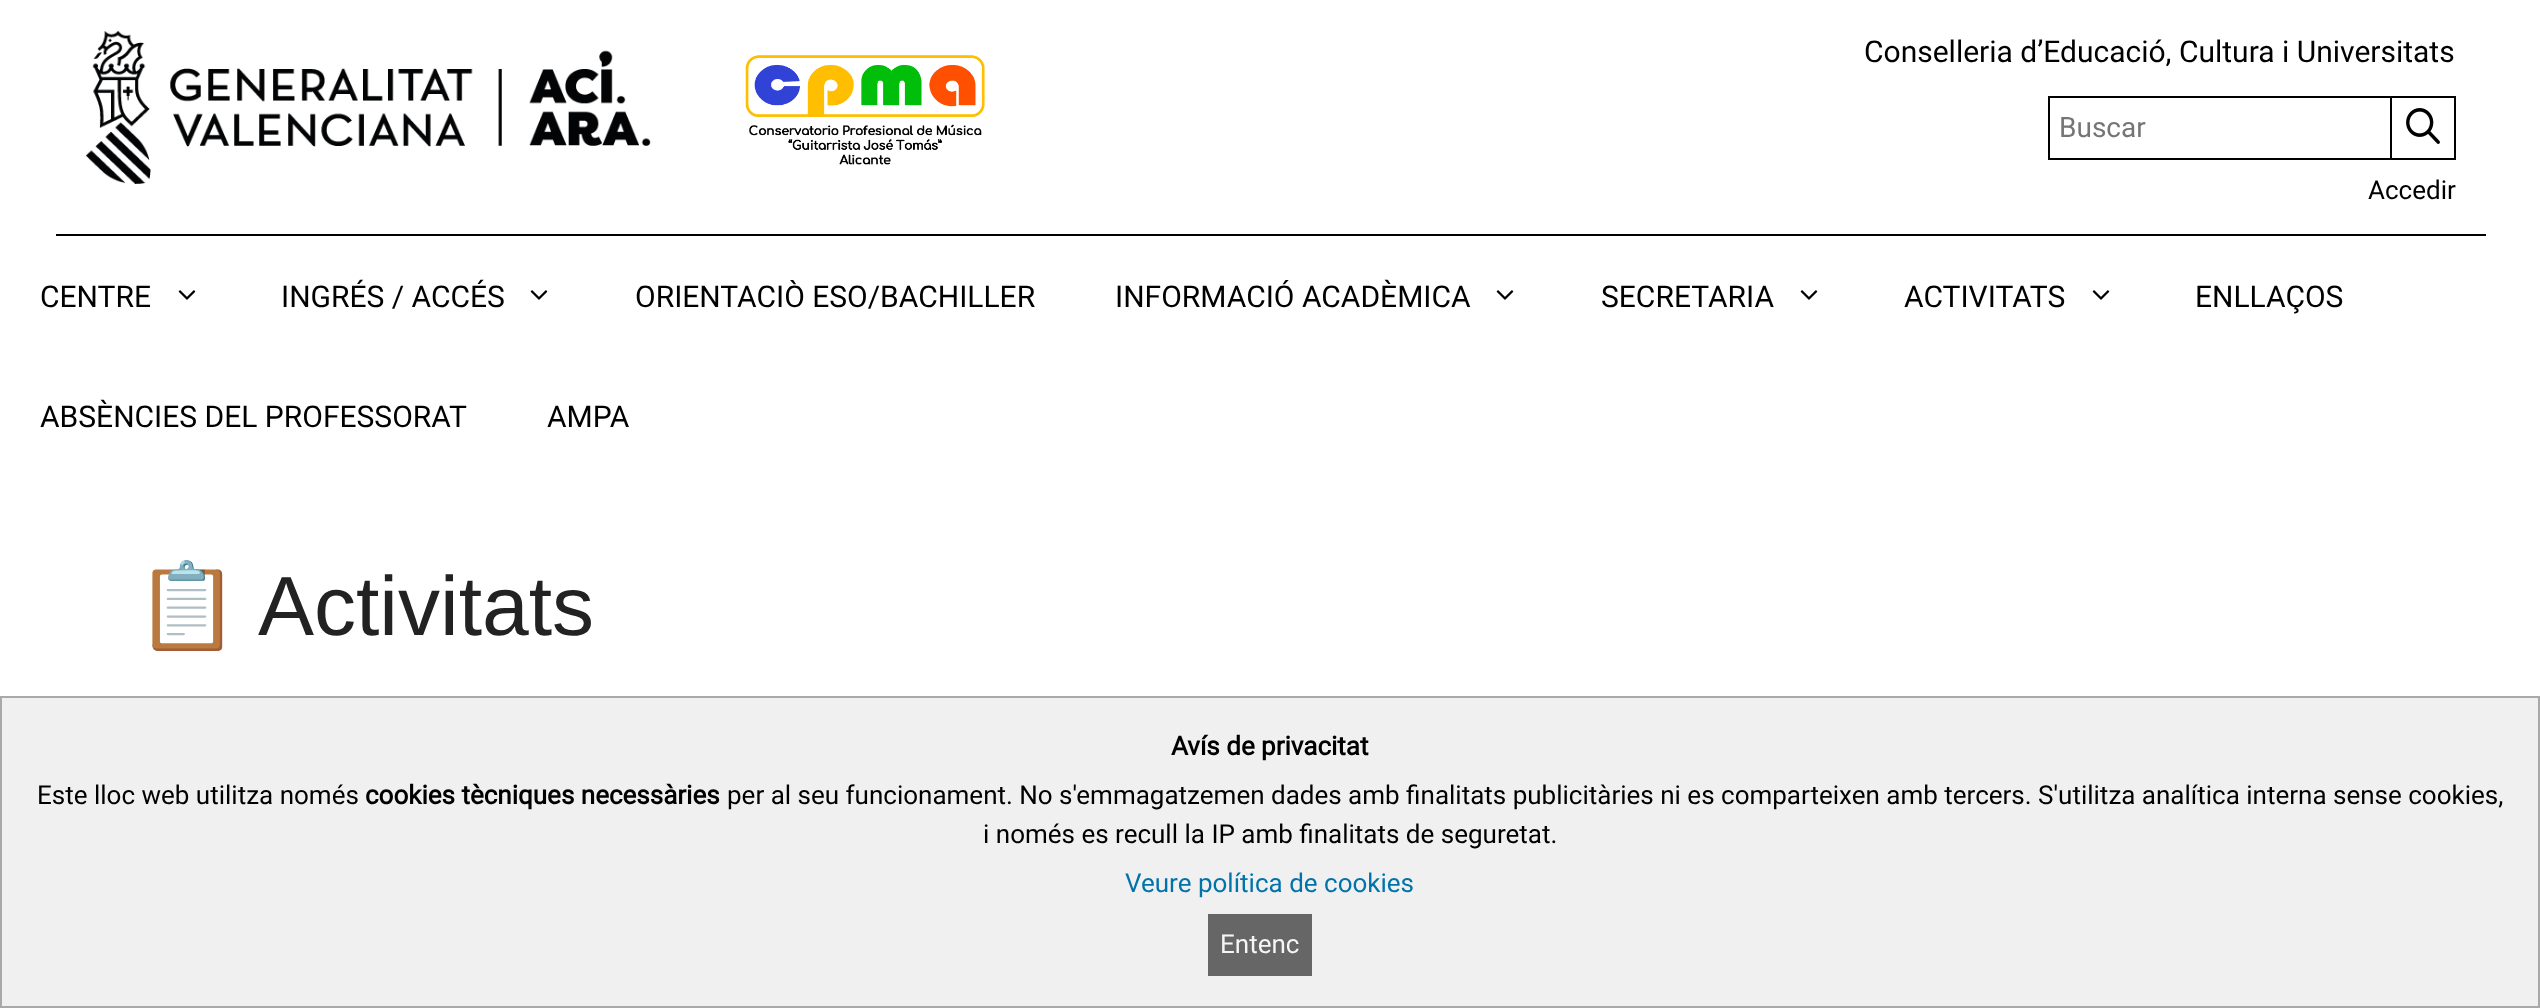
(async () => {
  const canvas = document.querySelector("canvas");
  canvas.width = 2540;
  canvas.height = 1008;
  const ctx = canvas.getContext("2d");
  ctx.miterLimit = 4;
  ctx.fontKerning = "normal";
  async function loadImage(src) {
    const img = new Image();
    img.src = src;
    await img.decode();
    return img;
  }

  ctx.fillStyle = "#ffffff";
  ctx.fillRect(0, 0, 2540, 1008);
  ctx.fillStyle = "#000000";
  ctx.fillRect(56, 234, 2430, 2);
  ctx.drawImage(await loadImage("img/1.png"), 86, 30, 565, 154);
  ctx.drawImage(await loadImage("img/2.png"), 745, 55, 240, 110);
  ctx.strokeStyle = "#000000";
  ctx.lineWidth = 2;
  ctx.strokeRect(2049, 97, 342, 62);
  ctx.drawImage(await loadImage("img/3.png"), 2406, 108, 34, 36);
  for (const [x, y, w, h, color] of [
    [2392, 96, 64, 2, "#000000"],
    [2454, 96, 2, 64, "#000000"],
    [2392, 158, 64, 2, "#000000"],
  ]) {
    ctx.fillStyle = color;
    ctx.fillRect(x, y, w, h);
  }
  ctx.drawImage(await loadImage("img/4.png"), 178, 290, 18, 10);
  ctx.drawImage(await loadImage("img/4.png"), 530, 290, 18, 10);
  ctx.drawImage(await loadImage("img/4.png"), 1496, 290, 18, 10);
  ctx.drawImage(await loadImage("img/4.png"), 1800, 290, 18, 10);
  ctx.drawImage(await loadImage("img/4.png"), 2092, 290, 18, 10);
  ctx.fillStyle = "#f0f0f0";
  ctx.beginPath();
  ctx.rect(1, 697, 2538, 310);
  ctx.fill();
  ctx.strokeStyle = "#a9a9a9";
  ctx.stroke();
  ctx.fillStyle = "#666666";
  ctx.fillRect(1208, 914, 104, 62);
  ctx.font = "30px Roboto";
  ctx.fillStyle = "#000000";
  ctx.fillText("Conselleria d’Educació, Cultura i Universitats", 1864, 62);
  ctx.font = "28px Roboto";
  ctx.fillStyle = "#757575";
  ctx.fillText("Buscar", 2059, 137);
  ctx.font = "26px Roboto";
  ctx.fillStyle = "#000000";
  ctx.fillText("Accedir", 2368, 199);
  ctx.font = "30px Roboto";
  for (const [text, x, y] of [
    ["CENTRE", 40, 307],
    ["INGRÉS / ACCÉS", 281, 307],
    ["ORIENTACIÒ ESO/BACHILLER", 635, 307],
    ["INFORMACIÓ ACADÈMICA", 1115, 307],
    ["SECRETARIA", 1601, 307],
    ["ACTIVITATS", 1904, 307],
    ["ENLLAÇOS", 2195, 307],
    ["ABSÈNCIES DEL PROFESSORAT", 40, 427],
    ["AMPA", 547, 427],
  ]) {
    ctx.fillText(text, x, y);
  }
  ctx.font = "84px Noto Color Emoji";
  ctx.fillStyle = "#222222";
  ctx.fillText("📋", 135, 635);
  ctx.font = "84px Liberation Sans";
  ctx.fillText("Activitats", 258, 635);
  ctx.font = "bold 26px Roboto";
  ctx.fillStyle = "#000000";
  ctx.fillText("Avís de privacitat", 1171, 755);
  ctx.font = "26px Roboto";
  ctx.fillText("Este lloc web utilitza només", 37, 804);
  ctx.font = "bold 26px Roboto";
  ctx.fillText("cookies tècniques necessàries", 365, 804);
  ctx.font = "26px Roboto";
  ctx.fillText("per al seu funcionament. No s'emmagatzemen dades amb finalitats publicitàries ni es comparteixen amb tercers. S'utilitza analítica interna sense cookies,", 727, 804);
  ctx.fillText("i només es recull la IP amb finalitats de seguretat.", 983, 843);
  ctx.fillStyle = "#0073aa";
  ctx.fillText("Veure política de cookies", 1125, 892);
  ctx.fillStyle = "#f5f5f5";
  ctx.fillText("Entenc", 1220, 953);
})();
